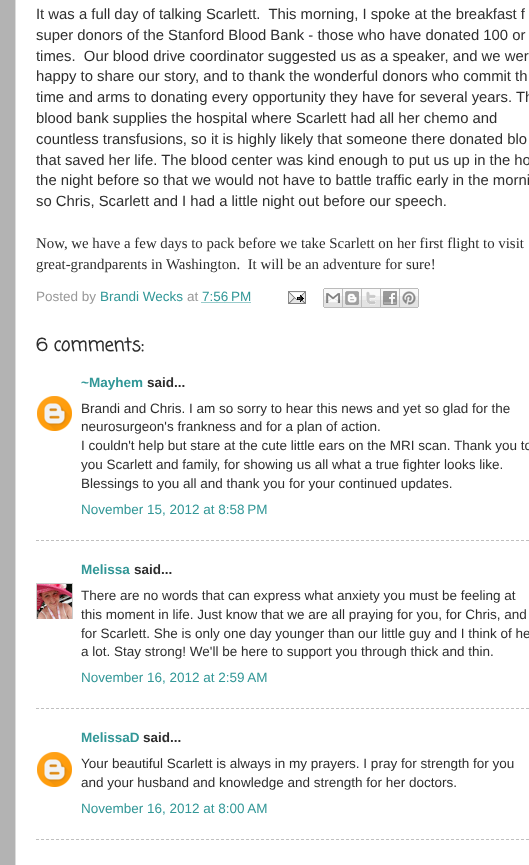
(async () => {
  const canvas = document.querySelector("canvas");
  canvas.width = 529;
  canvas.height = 865;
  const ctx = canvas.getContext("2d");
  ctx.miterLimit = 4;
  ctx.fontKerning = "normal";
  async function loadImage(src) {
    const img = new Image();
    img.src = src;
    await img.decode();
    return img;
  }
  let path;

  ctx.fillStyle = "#b3b3b3";
  ctx.fillRect(0, 0, 529, 865);
  ctx.fillStyle = "#ffffff";
  ctx.beginPath();
  ctx.rect(15.5, -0.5, 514, 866);
  ctx.fill();
  ctx.strokeStyle = "#dcdcdc";
  ctx.stroke();
  path = new Path2D("M201.5 302.5H251");
  ctx.strokeStyle = "#329797";
  ctx.setLineDash([1, 1]);
  ctx.stroke(path);
  ctx.drawImage(await loadImage("img/1.png"), 288, 291, 18, 13);
  ctx.drawImage(await loadImage("img/2.png"), 323, 288, 20, 20);
  ctx.drawImage(await loadImage("img/3.png"), 343, 288, 19, 20);
  ctx.drawImage(await loadImage("img/4.png"), 362, 288, 19, 20);
  ctx.drawImage(await loadImage("img/5.png"), 381, 288, 19, 20);
  ctx.drawImage(await loadImage("img/6.png"), 400, 288, 19, 20);
  ctx.drawImage(await loadImage("img/7.png"), 37, 396, 35, 35);
  path = new Path2D("M36 540.5H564");
  ctx.strokeStyle = "#c0c0c0";
  ctx.setLineDash([3, 2]);
  ctx.stroke(path);
  ctx.save();
  ctx.beginPath();
  ctx.rect(36, 583, 37, 36);
  ctx.clip();
  ctx.strokeStyle = "#cccccc";
  ctx.setLineDash([]);
  ctx.strokeRect(36.5, 583.5, 36, 36);
  ctx.restore();
  ctx.drawImage(await loadImage("img/8.png"), 37, 584, 35, 35);
  path = new Path2D("M36 708.5H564");
  ctx.stroke(path);
  ctx.drawImage(await loadImage("img/7.png"), 37, 752, 35, 35);
  path = new Path2D("M36 839.5H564");
  ctx.stroke(path);
  ctx.font = "14.85px Liberation Sans";
  ctx.fillStyle = "#2e2e2e";
  for (const [text, x, y] of [
    ["It was a full day of talking Scarlett.  This morning, I spoke at the breakfast f", 36, 19],
    ["super donors of the Stanford Blood Bank - those who have donated 100 or", 36, 40],
    ["times.  Our blood drive coordinator suggested us as a speaker, and we wer", 36, 61],
    ["happy to share our story, and to thank the wonderful donors who commit th", 36, 81],
    ["time and arms to donating every opportunity they have for several years. Th", 36, 102],
    ["blood bank supplies the hospital where Scarlett had all her chemo and", 36, 123],
    ["countless transfusions, so it is highly likely that someone there donated blo", 36, 144],
    ["that saved her life. The blood center was kind enough to put us up in the ho", 36, 165],
    ["the night before so that we would not have to battle traffic early in the morni", 36, 185],
    ["so Chris, Scarlett and I had a little night out before our speech.", 36, 206],
  ]) {
    ctx.fillText(text, x, y);
  }
  ctx.font = "14.85px Liberation Serif";
  ctx.fillText("Now, we have a few days to pack before we take Scarlett on her first flight to visit", 36, 248);
  ctx.fillText("great-grandparents in Washington.  It will be an adventure for sure!", 36, 269);
  ctx.font = "13.5px Liberation Sans";
  ctx.fillStyle = "#989898";
  ctx.fillText("Posted by", 36, 301);
  ctx.fillStyle = "#329797";
  ctx.fillText("Brandi Wecks", 100, 301);
  ctx.fillStyle = "#989898";
  ctx.fillText("at", 187, 301);
  ctx.fillStyle = "#329797";
  ctx.fillText("7:56 PM", 202, 301);
  ctx.font = "bold 18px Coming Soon";
  ctx.fillStyle = "#2e2e2e";
  ctx.fillText("6 comments:", 36, 351);
  ctx.font = "bold 13.5px Liberation Sans";
  ctx.fillStyle = "#329797";
  ctx.fillText("~Mayhem", 81, 387);
  ctx.fillStyle = "#2e2e2e";
  ctx.fillText("said...", 147, 387);
  ctx.font = "13.5px Liberation Sans";
  for (const [text, x, y] of [
    ["Brandi and Chris. I am so sorry to hear this news and yet so glad for the", 81, 413],
    ["neurosurgeon's frankness and for a plan of action.", 81, 431],
    ["I couldn't help but stare at the cute little ears on the MRI scan. Thank you to", 81, 450],
    ["you Scarlett and family, for showing us all what a true fighter looks like.", 81, 469],
    ["Blessings to you all and thank you for your continued updates.", 81, 488],
  ]) {
    ctx.fillText(text, x, y);
  }
  ctx.fillStyle = "#329797";
  ctx.fillText("November 15, 2012 at 8:58 PM", 81, 514);
  ctx.font = "bold 13.5px Liberation Sans";
  ctx.fillText("Melissa", 81, 574);
  ctx.fillStyle = "#2e2e2e";
  ctx.fillText("said...", 134, 574);
  ctx.font = "13.5px Liberation Sans";
  for (const [text, x, y] of [
    ["There are no words that can express what anxiety you must be feeling at", 81, 600],
    ["this moment in life. Just know that we are all praying for you, for Chris, and", 81, 619],
    ["for Scarlett. She is only one day younger than our little guy and I think of he", 81, 638],
    ["a lot. Stay strong! We'll be here to support you through thick and thin.", 81, 656],
  ]) {
    ctx.fillText(text, x, y);
  }
  ctx.fillStyle = "#329797";
  ctx.fillText("November 16, 2012 at 2:59 AM", 81, 682);
  ctx.font = "bold 13.5px Liberation Sans";
  ctx.fillText("MelissaD", 81, 742);
  ctx.fillStyle = "#2e2e2e";
  ctx.fillText("said...", 143, 742);
  ctx.font = "13.5px Liberation Sans";
  ctx.fillText("Your beautiful Scarlett is always in my prayers. I pray for strength for you", 81, 768);
  ctx.fillText("and your husband and knowledge and strength for her doctors.", 81, 787);
  ctx.fillStyle = "#329797";
  ctx.fillText("November 16, 2012 at 8:00 AM", 81, 813);
})();
